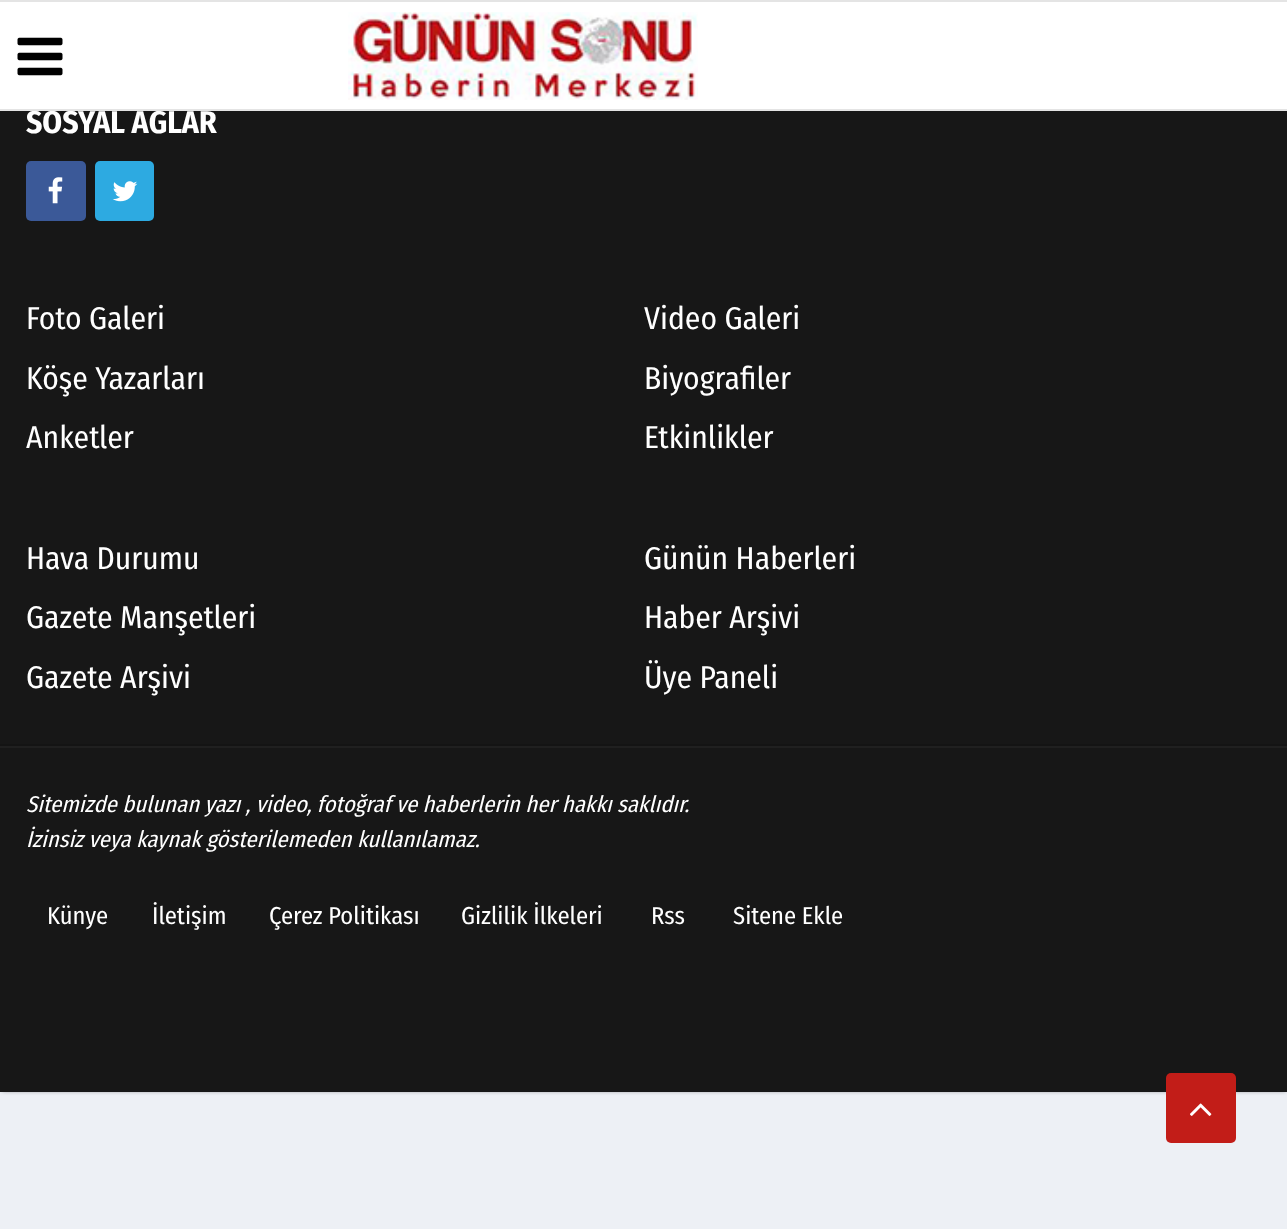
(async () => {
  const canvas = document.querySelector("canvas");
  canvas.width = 1287;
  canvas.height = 1229;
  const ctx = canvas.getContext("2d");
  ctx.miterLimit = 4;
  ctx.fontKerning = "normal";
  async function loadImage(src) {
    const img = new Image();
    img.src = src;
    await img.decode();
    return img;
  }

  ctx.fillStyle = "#edf0f5";
  ctx.fillRect(0, 0, 1287, 1229);
  ctx.fillStyle = "rgba(0, 0, 0, 0.7)";
  ctx.filter = "blur(2.5px)";
  ctx.beginPath();
  ctx.rect(2, -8, 1284, 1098);
  ctx.fill();
  ctx.filter = "none";
  ctx.fillStyle = "#ffffff";
  ctx.fillRect(0, 2, 1287, 107);
  ctx.fillStyle = "#e4e4e4";
  ctx.fillRect(0, 0, 1287, 2);
  ctx.drawImage(await loadImage("img/1.png"), 17, 37, 46, 39);
  ctx.drawImage(await loadImage("img/2.png"), 348, 12, 350, 88);
  ctx.fillStyle = "#171717";
  ctx.fillRect(0, 111, 1287, 981);
  ctx.fillStyle = "#3b5998";
  ctx.beginPath();
  ctx.roundRect(26, 161, 60, 60, 5);
  ctx.fill();
  ctx.drawImage(await loadImage("img/3.png"), 48, 177, 15, 27);
  ctx.fillStyle = "#2daae1";
  ctx.beginPath();
  ctx.roundRect(95, 161, 59, 60, 5);
  ctx.fill();
  ctx.drawImage(await loadImage("img/4.png"), 112, 181, 26, 21);
  ctx.fillStyle = "#141414";
  ctx.fillRect(0, 744, 1287, 2);
  ctx.fillStyle = "#202020";
  ctx.fillRect(0, 746, 1287, 2);
  ctx.fillStyle = "#c21d18";
  ctx.beginPath();
  ctx.roundRect(1166, 1073, 70, 70, 5);
  ctx.fill();
  ctx.drawImage(await loadImage("img/5.png"), 1190, 1103, 22, 13);
  ctx.font = "bold 31.5px Fira Sans Condensed";
  ctx.fillStyle = "#ffffff";
  ctx.fillText("SOSYAL AĞLAR", 26, 133);
  ctx.fillStyle = "#e4e4e4";
  ctx.fillRect(0, 109, 1287, 2);
  ctx.font = "31.5px Fira Sans Condensed";
  ctx.fillStyle = "#ffffff";
  for (const [text, x, y] of [
    ["Foto Galeri", 26, 329],
    ["Video Galeri", 644, 329],
    ["Köşe Yazarları", 26, 389],
    ["Biyografiler", 644, 389],
    ["Anketler", 26, 448],
    ["Etkinlikler", 644, 448],
    ["Hava Durumu", 26, 569],
    ["Günün Haberleri", 644, 569],
    ["Gazete Manşetleri", 26, 628],
    ["Haber Arşivi", 644, 628],
    ["Gazete Arşivi", 26, 688],
    ["Üye Paneli", 644, 688],
  ]) {
    ctx.fillText(text, x, y);
  }
  ctx.font = "italic 22.75px Fira Sans Condensed";
  ctx.fillText("Sitemizde bulunan yazı , video, fotoğraf ve haberlerin her hakkı saklıdır.", 26, 812);
  ctx.fillText("İzinsiz veya kaynak gösterilemeden kullanılamaz.", 26, 847);
  ctx.font = "24.5px Fira Sans Condensed";
  for (const [text, x, y] of [
    ["Künye", 47, 924],
    ["İletişim", 152, 924],
    ["Çerez Politikası", 269, 924],
    ["Gizlilik İlkeleri", 461, 924],
    ["Rss", 651, 924],
    ["Sitene Ekle", 733, 924],
  ]) {
    ctx.fillText(text, x, y);
  }
})();
